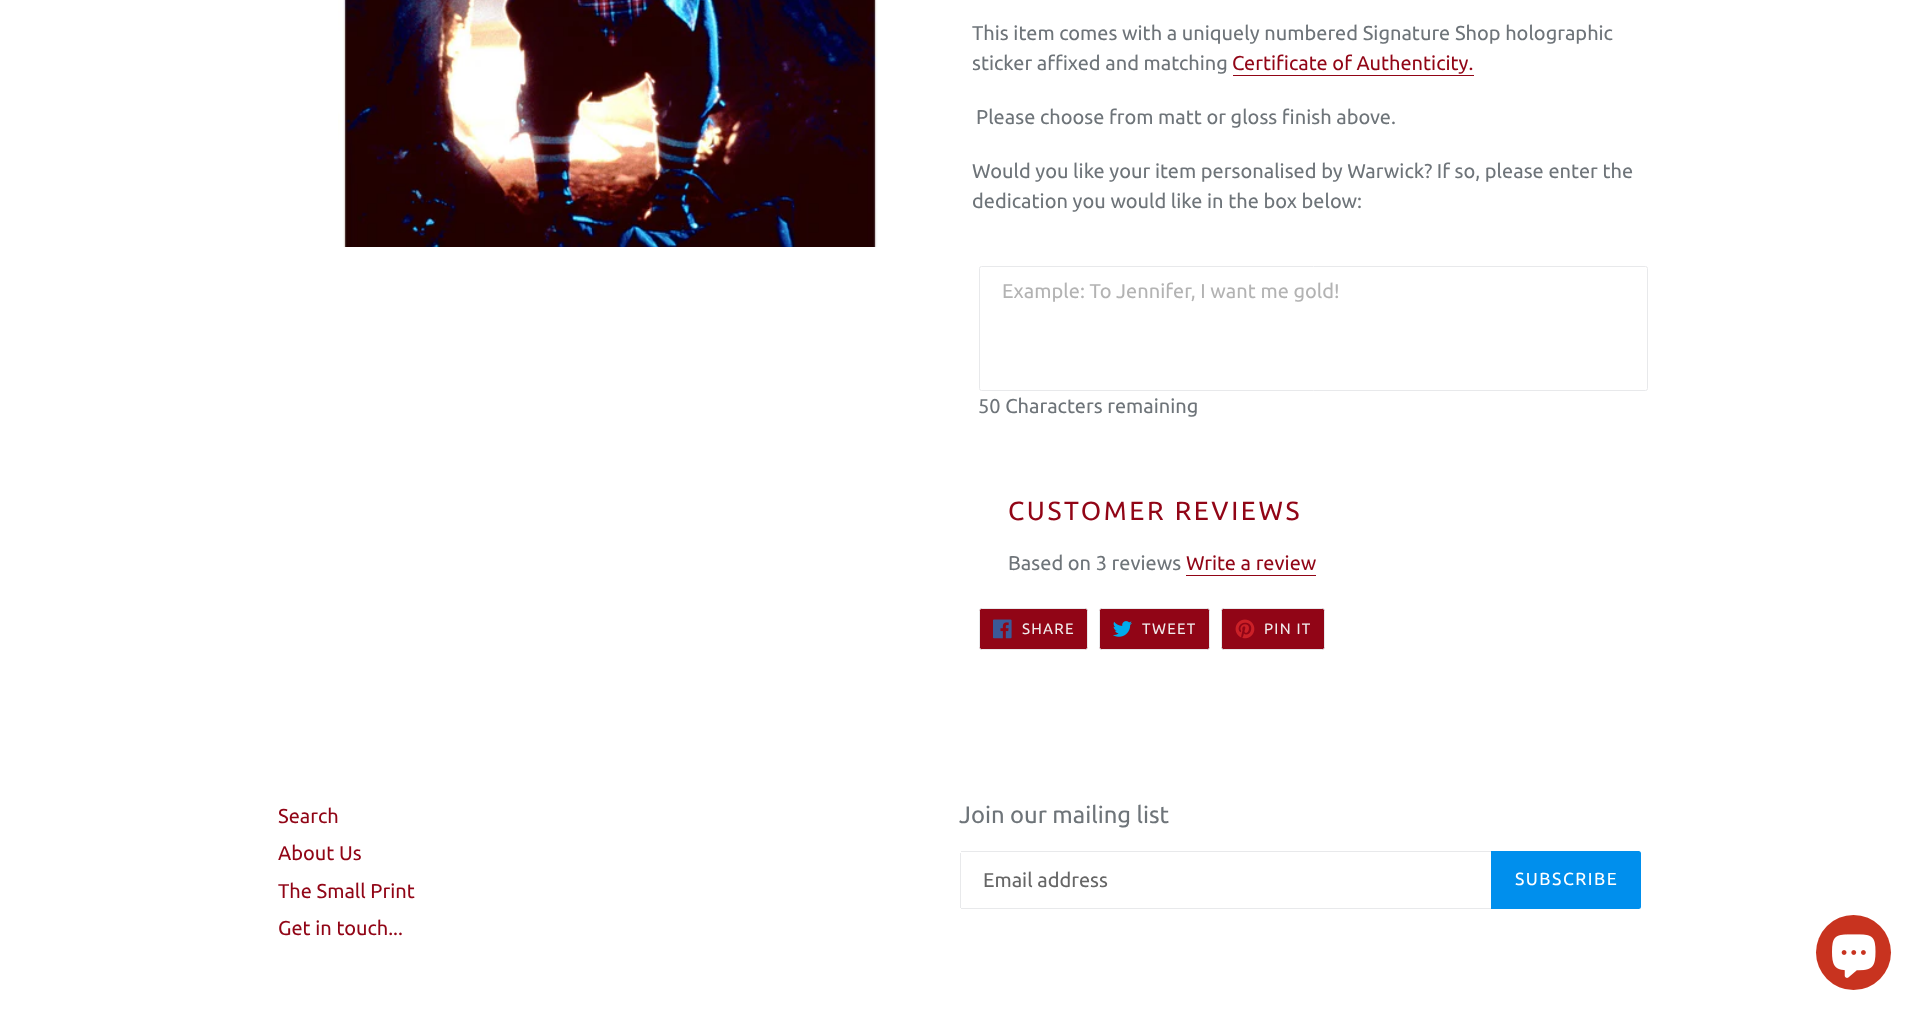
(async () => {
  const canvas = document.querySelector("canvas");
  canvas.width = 1918;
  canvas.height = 1016;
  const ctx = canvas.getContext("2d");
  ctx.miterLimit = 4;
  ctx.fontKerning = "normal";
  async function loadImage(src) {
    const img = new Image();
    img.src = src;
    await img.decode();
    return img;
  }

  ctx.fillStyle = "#ffffff";
  ctx.fillRect(0, 0, 1918, 1016);
  ctx.drawImage(await loadImage("img/1.png"), 338, 0, 540, 247);
  ctx.fillStyle = "#910516";
  ctx.fillRect(1233, 75, 241, 1);
  ctx.beginPath();
  ctx.roundRect(979.5, 266.5, 668, 124, 2);
  ctx.strokeStyle = "#e8e9eb";
  ctx.stroke();
  ctx.fillRect(1186, 575, 130, 1);
  ctx.beginPath();
  ctx.roundRect(979.5, 608.5, 108, 41, 2);
  ctx.fill();
  ctx.stroke();
  ctx.drawImage(await loadImage("img/2.png"), 993, 619, 19, 20);
  ctx.beginPath();
  ctx.roundRect(1099.5, 608.5, 110, 41, 2);
  ctx.fill();
  ctx.stroke();
  ctx.drawImage(await loadImage("img/3.png"), 1113, 621, 19, 16);
  ctx.beginPath();
  ctx.roundRect(1221.5, 608.5, 103, 41, 2);
  ctx.fill();
  ctx.stroke();
  ctx.drawImage(await loadImage("img/4.png"), 1235, 619, 20, 20);
  for (const [x, y, w, h, color] of [
    [961, 851, 530, 1, "#e8e9eb"],
    [961, 908, 530, 1, "#e8e9eb"],
    [960, 853, 1, 55, "#e8e9eb"],
  ]) {
    ctx.fillStyle = color;
    ctx.fillRect(x, y, w, h);
  }
  ctx.fillStyle = "#008fed";
  ctx.beginPath();
  ctx.roundRect(1491, 851, 150, 58, [0, 2.5, 2.5, 0]);
  ctx.fill();
  ctx.fillStyle = "#c8331f";
  ctx.beginPath();
  ctx.arc(1853.5, 952.5, 37.5, 0, Math.PI * 2);
  ctx.fill();
  ctx.drawImage(await loadImage("img/5.png"), 1832, 934, 44, 44);
  ctx.font = "20px Ubuntu";
  ctx.fillStyle = "#6e7479";
  ctx.fillText("This item comes with a uniquely numbered Signature Shop holographic", 972, 40);
  ctx.fillText("sticker affixed and matching", 972, 70);
  ctx.fillStyle = "#910516";
  ctx.fillText("Certificate of Authenticity.", 1232, 70);
  ctx.fillStyle = "#6e7479";
  for (const [text, x, y] of [
    ["Please choose from matt or gloss finish above.", 976, 124],
    ["Would you like your item personalised by Warwick? If so, please enter the", 972, 178],
    ["dedication you would like in the box below:", 972, 208],
  ]) {
    ctx.fillText(text, x, y);
  }
  ctx.fillStyle = "#b3b3b3";
  ctx.fillText("Example: To Jennifer, I want me gold!", 1002, 298);
  ctx.fillStyle = "#6e7479";
  ctx.fillText("50 Characters remaining", 978, 413);
  ctx.letterSpacing = "2.6px";
  ctx.font = "26.25px Ubuntu";
  ctx.fillStyle = "#910516";
  ctx.fillText("CUSTOMER REVIEWS", 1008, 520);
  ctx.letterSpacing = "0px";
  ctx.font = "20px Ubuntu";
  ctx.fillStyle = "#6e7479";
  ctx.fillText("Based on 3 reviews", 1008, 570);
  ctx.fillStyle = "#910516";
  ctx.fillText("Write a review", 1186, 570);
  ctx.letterSpacing = "1.25px";
  ctx.font = "15px Ubuntu";
  ctx.fillStyle = "#f0ecec";
  for (const [text, x, y] of [
    ["SHARE", 1022, 634],
    ["TWEET", 1142, 634],
    ["PIN IT", 1264, 634],
  ]) {
    ctx.fillText(text, x, y);
  }
  ctx.letterSpacing = "0px";
  ctx.font = "20px Ubuntu";
  ctx.fillStyle = "#910516";
  for (const [text, x, y] of [
    ["Search", 278, 823],
    ["About Us", 278, 860],
    ["The Small Print", 278, 898],
    ["Get in touch...", 278, 935],
  ]) {
    ctx.fillText(text, x, y);
  }
  ctx.font = "23.75px Ubuntu";
  ctx.fillStyle = "#6e7479";
  ctx.fillText("Join our mailing list", 959, 823);
  ctx.font = "20px Ubuntu";
  ctx.fillStyle = "#666666";
  ctx.fillText("Email address", 983, 887);
  ctx.letterSpacing = "1.5px";
  ctx.font = "17.5px Ubuntu";
  ctx.fillStyle = "#ffffff";
  ctx.fillText("SUBSCRIBE", 1515, 885);
})();
